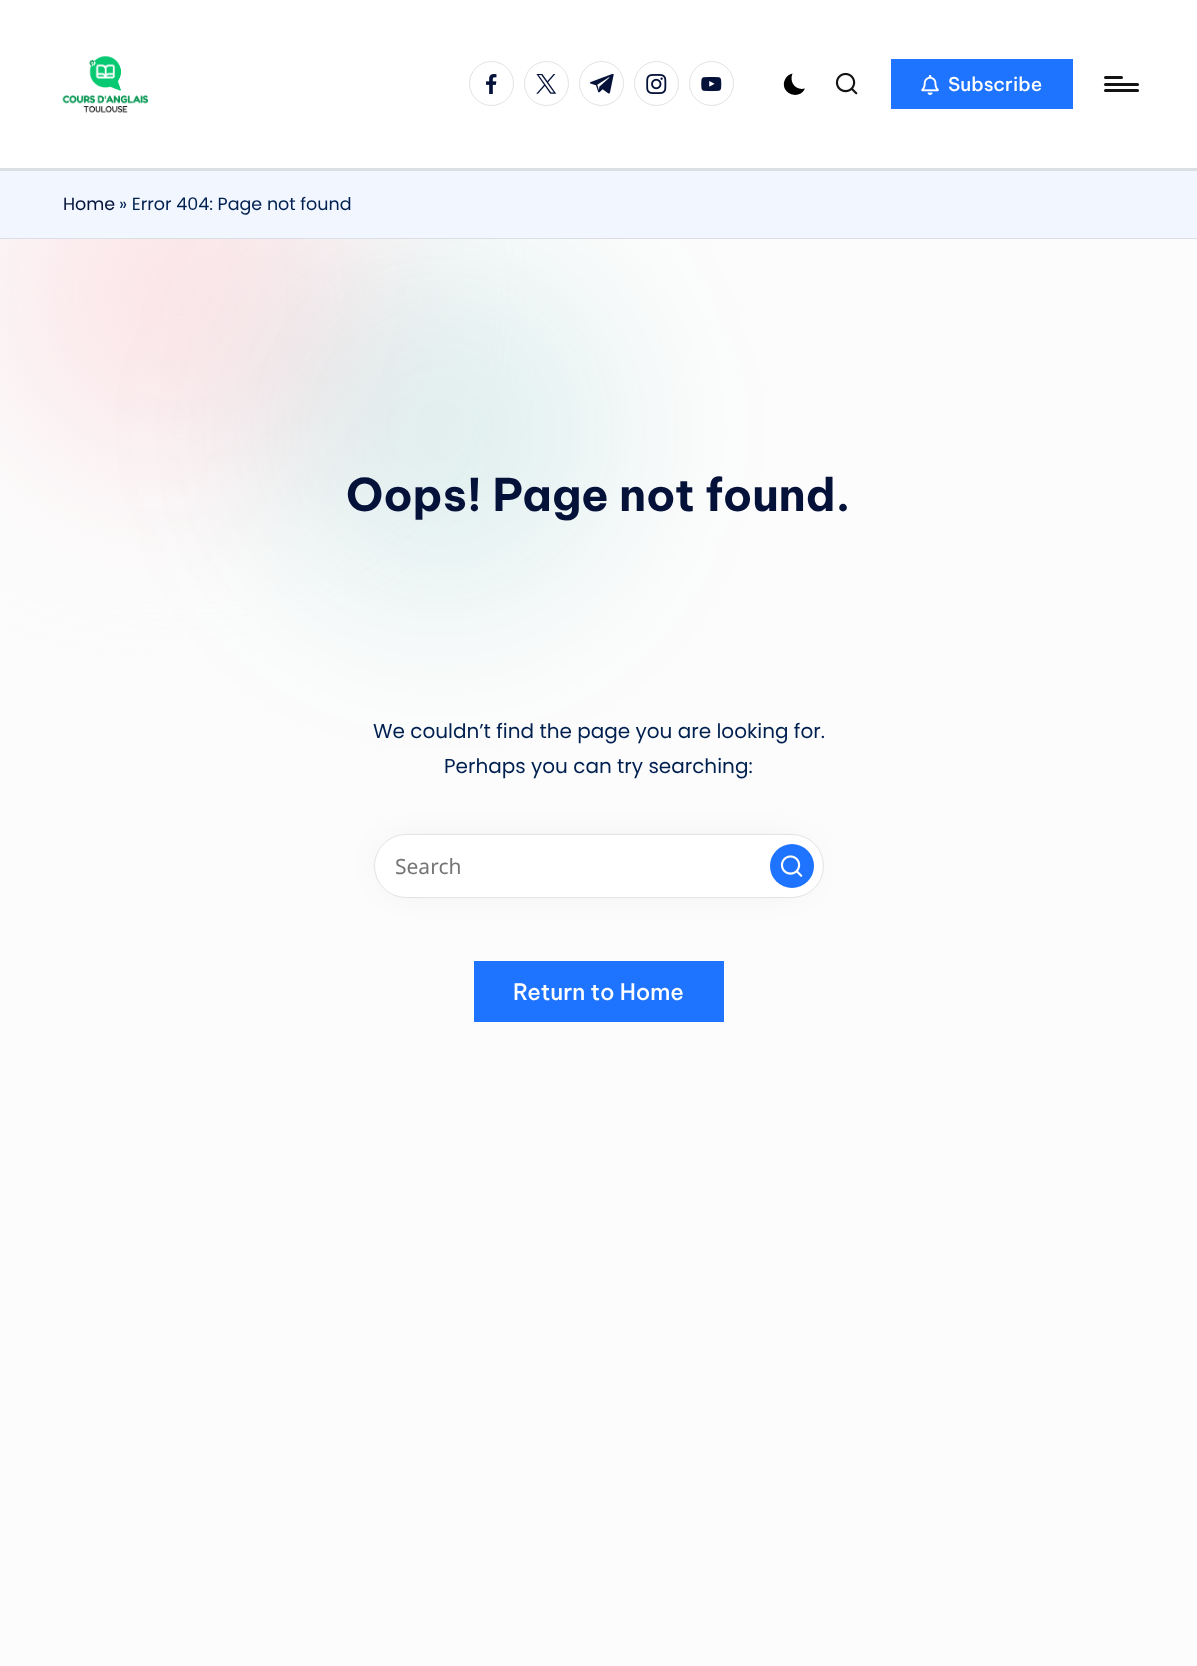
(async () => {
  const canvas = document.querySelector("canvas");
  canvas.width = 1197;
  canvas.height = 1666;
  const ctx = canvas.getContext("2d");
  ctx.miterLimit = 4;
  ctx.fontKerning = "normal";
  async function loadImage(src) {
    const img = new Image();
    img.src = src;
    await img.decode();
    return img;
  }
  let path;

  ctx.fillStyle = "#fcfcfc";
  ctx.fillRect(0, 0, 1197, 1666);
  ctx.fillStyle = "#fbe6e9";
  ctx.filter = "blur(80px)";
  ctx.beginPath();
  ctx.roundRect(0, 113, 360, 360, 180);
  ctx.fill();
  ctx.filter = "none";
  ctx.fillStyle = "rgba(4, 134, 139, 0.1)";
  ctx.filter = "blur(80px)";
  ctx.beginPath();
  ctx.roundRect(260, 250, 360, 360, 180);
  ctx.fill();
  ctx.filter = "none";
  ctx.fillStyle = "#ffffff";
  ctx.fillRect(0, 0, 1197, 168);
  ctx.drawImage(await loadImage("img/1.png"), 62, 56, 87, 57);
  ctx.beginPath();
  ctx.arc(491.5, 83.5, 22, 0, Math.PI * 2);
  ctx.strokeStyle = "#e3e3e3";
  ctx.stroke();
  ctx.drawImage(await loadImage("img/2.png"), 486, 74, 11, 20);
  ctx.beginPath();
  ctx.arc(546.5, 83.5, 22, 0, Math.PI * 2);
  ctx.stroke();
  ctx.drawImage(await loadImage("img/3.png"), 536, 74, 21, 20);
  ctx.beginPath();
  ctx.arc(601.5, 83.5, 22, 0, Math.PI * 2);
  ctx.stroke();
  ctx.drawImage(await loadImage("img/4.png"), 590, 74, 24, 20);
  ctx.beginPath();
  ctx.arc(656.5, 83.5, 22, 0, Math.PI * 2);
  ctx.stroke();
  ctx.drawImage(await loadImage("img/5.png"), 646, 74, 21, 20);
  ctx.beginPath();
  ctx.arc(711.5, 83.5, 22, 0, Math.PI * 2);
  ctx.stroke();
  ctx.drawImage(await loadImage("img/6.png"), 701, 77, 21, 15);
  ctx.fillStyle = "#000000";
  path = new Path2D("M805 88.5C795.5 91 789 82 792.5 73.5C789.5 74 787 76 785.5 78.5C778 92 798.5 102 805 88.5Z");
  ctx.fill(path);
  ctx.drawImage(await loadImage("img/7.png"), 835, 72, 23, 23);
  ctx.fillStyle = "#1e73ff";
  ctx.fillRect(891, 59, 182, 50);
  ctx.drawImage(await loadImage("img/8.png"), 921, 75, 18, 20);
  ctx.fillStyle = "#131315";
  ctx.beginPath();
  ctx.roundRect(1104, 83, 35, 3, 1.5);
  ctx.fill();
  ctx.beginPath();
  ctx.roundRect(1104, 76, 19, 3, 1.5);
  ctx.fill();
  ctx.beginPath();
  ctx.roundRect(1104, 89, 35, 3, 1.5);
  ctx.fill();
  for (const [x, y, w, h, color] of [
    [0, 171, 1197, 67, "#f1f6ff"],
    [0, 168, 1197, 3, "#dbdee3"],
    [0, 238, 1197, 1, "#dbdee3"],
  ]) {
    ctx.fillStyle = color;
    ctx.fillRect(x, y, w, h);
  }
  ctx.fillStyle = "rgba(0, 0, 0, 0.15)";
  ctx.filter = "blur(20px)";
  ctx.beginPath();
  ctx.roundRect(390, 854, 410, 24, 12);
  ctx.fill();
  ctx.filter = "none";
  ctx.fillStyle = "#ffffff";
  ctx.beginPath();
  ctx.roundRect(374, 834, 450, 64, 32);
  ctx.fill();
  ctx.beginPath();
  ctx.roundRect(374.5, 834.5, 449, 63, 31.5);
  ctx.strokeStyle = "rgba(185, 185, 185, 0.4)";
  ctx.stroke();
  ctx.fillStyle = "#1e73ff";
  ctx.beginPath();
  ctx.arc(792, 866, 22, 0, Math.PI * 2);
  ctx.fill();
  ctx.drawImage(await loadImage("img/9.png"), 780, 855, 23, 22);
  ctx.beginPath();
  ctx.rect(473.5, 960.5, 251, 62);
  ctx.fill();
  ctx.strokeStyle = "#ffffff";
  ctx.stroke();
  ctx.font = "500 19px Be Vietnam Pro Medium";
  ctx.fillStyle = "#ffffff";
  ctx.fillText("Subscribe", 948, 91);
  ctx.font = "17.5px Poppins";
  ctx.fillStyle = "#041139";
  ctx.fillText("Home", 63, 210);
  ctx.fillStyle = "#002050";
  ctx.fillText("» Error 404: Page not found", 119, 210);
  ctx.font = "bold 45px Be Vietnam Pro";
  ctx.fillStyle = "#041139";
  ctx.fillText("Oops! Page not found.", 346, 511);
  ctx.font = "20px Poppins";
  ctx.fillStyle = "#002050";
  ctx.fillText("We couldn’t find the page you are looking for.", 373, 738);
  ctx.fillText("Perhaps you can try searching:", 444, 773);
  ctx.font = "21px Noto Sans";
  ctx.fillStyle = "#757575";
  ctx.fillText("Search", 395, 874);
  ctx.font = "500 22.5px Be Vietnam Pro Medium";
  ctx.fillStyle = "#ffffff";
  ctx.fillText("Return to Home", 513, 1000);
})();
